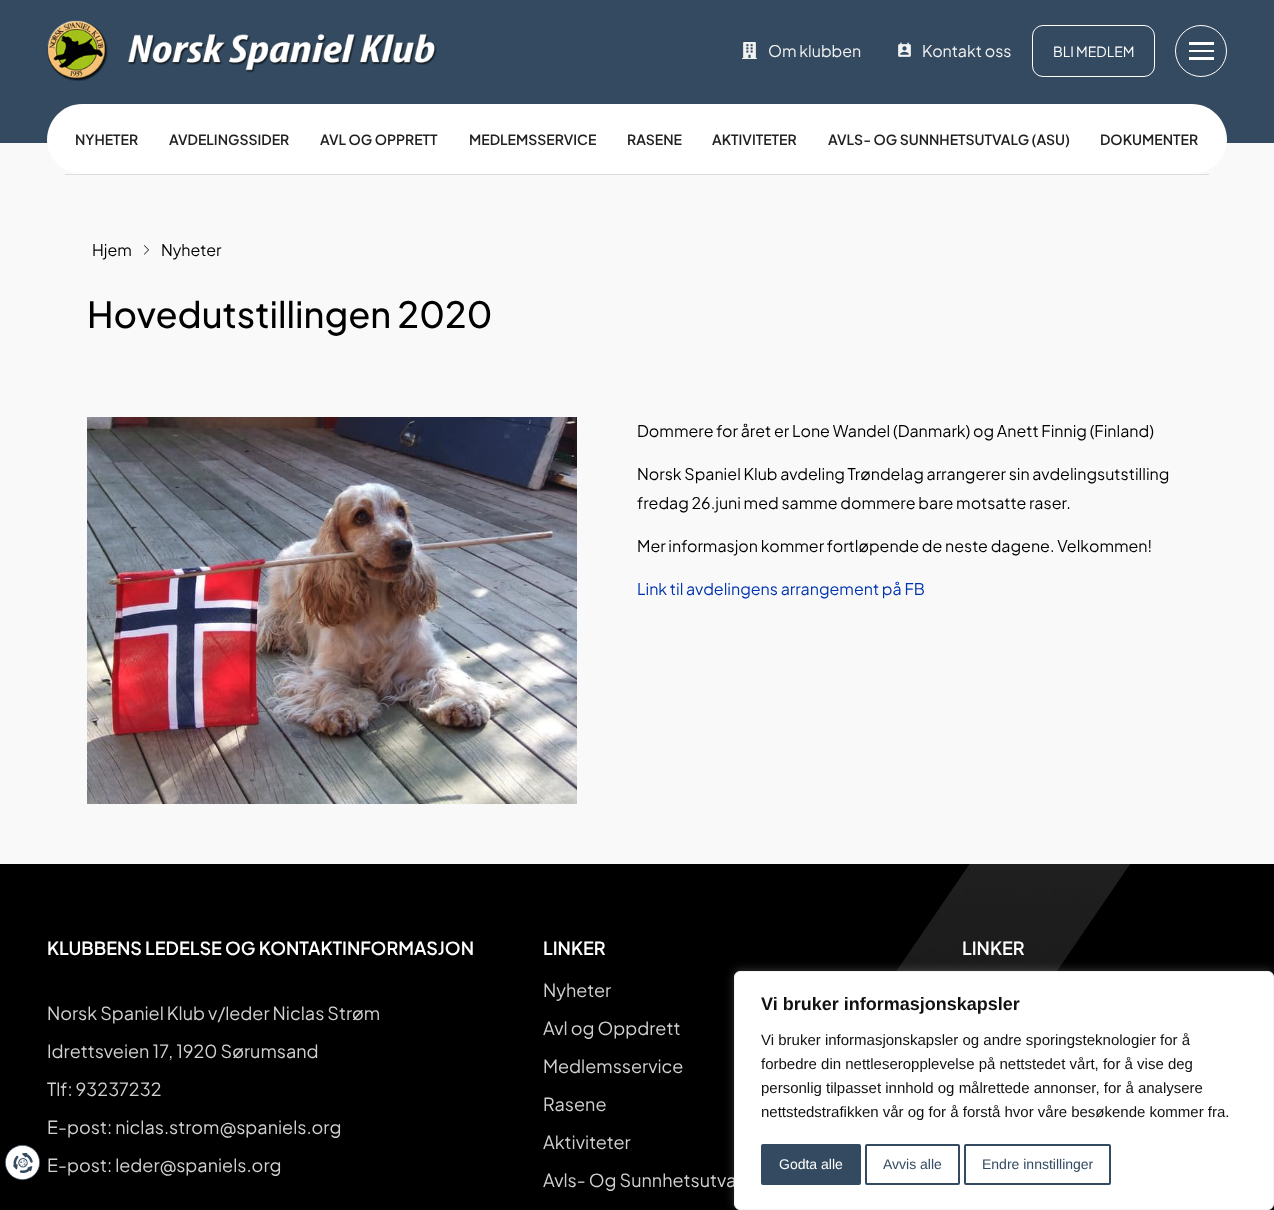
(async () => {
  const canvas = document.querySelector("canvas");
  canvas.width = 1274;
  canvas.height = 1210;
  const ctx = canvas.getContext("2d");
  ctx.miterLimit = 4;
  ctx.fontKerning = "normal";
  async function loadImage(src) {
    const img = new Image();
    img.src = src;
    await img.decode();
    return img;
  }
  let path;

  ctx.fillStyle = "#f9f9f9";
  ctx.fillRect(0, 0, 1274, 1210);
  ctx.fillStyle = "#334a60";
  ctx.fillRect(0, 0, 1274, 143);
  ctx.drawImage(await loadImage("img/1.png"), 47, 20, 390, 61);
  ctx.drawImage(await loadImage("img/2.png"), 742, 42, 15, 17);
  ctx.drawImage(await loadImage("img/3.png"), 898, 42, 13, 15);
  ctx.beginPath();
  ctx.roundRect(1032.5, 25.5, 122, 51, 10.5);
  ctx.strokeStyle = "#ffffff";
  ctx.stroke();
  ctx.beginPath();
  ctx.arc(1201, 51, 25.5, 0, Math.PI * 2);
  ctx.stroke();
  for (const [x, y, w, h, color] of [
    [1189, 42, 25, 3, "#ffffff"],
    [1189, 50, 25, 2, "#ffffff"],
    [1189, 57, 25, 3, "#ffffff"],
  ]) {
    ctx.fillStyle = color;
    ctx.fillRect(x, y, w, h);
  }
  path = new Path2D("M82 104H1192C1211 104 1227 120 1227 140C1227 159 1211 174 1192 174H82C63 174 47 159 47 140C47 120 63 104 82 104Z");
  ctx.fill(path);
  ctx.fillStyle = "#dddddd";
  ctx.fillRect(65, 174, 1144, 1);
  ctx.drawImage(await loadImage("img/4.png"), 144, 245, 5, 10);
  ctx.drawImage(await loadImage("img/5.png"), 87, 417, 490, 387);
  ctx.fillStyle = "#000000";
  ctx.fillRect(0, 864, 1274, 346);
  ctx.drawImage(await loadImage("img/6.png"), 896, 864, 235, 107);
  ctx.fillStyle = "#ffffff";
  ctx.beginPath();
  ctx.arc(22.5, 1162.5, 17.15, 0, Math.PI * 2);
  ctx.fill();
  ctx.strokeStyle = "#334a60";
  ctx.lineWidth = 0.7;
  ctx.stroke();
  ctx.drawImage(await loadImage("img/7.png"), 13, 1153, 20, 20);
  ctx.fillStyle = "rgba(172, 171, 171, 0.3)";
  ctx.filter = "blur(5px)";
  ctx.beginPath();
  ctx.roundRect(734, 970, 540, 239, 6);
  ctx.fill();
  ctx.filter = "none";
  ctx.font = "16px Plus Jakarta Sans";
  ctx.fillStyle = "#f2f2f2";
  ctx.fillText("Om klubben", 768, 57);
  ctx.fillText("Kontakt oss", 922, 57);
  ctx.font = "14px Plus Jakarta Sans";
  ctx.fillStyle = "#ffffff";
  ctx.fillText("BLI MEDLEM", 1053, 57);
  ctx.font = "600 14px Plus Jakarta Sans";
  ctx.fillStyle = "#212121";
  for (const [text, x, y] of [
    ["NYHETER", 75, 145],
    ["AVDELINGSSIDER", 169, 145],
    ["AVL OG OPPRETT", 320, 145],
    ["MEDLEMSSERVICE", 469, 145],
    ["RASENE", 627, 145],
    ["AKTIVITETER", 712, 145],
    ["AVLS- OG SUNNHETSUTVALG (ASU)", 828, 145],
    ["DOKUMENTER", 1100, 145],
  ]) {
    ctx.fillText(text, x, y);
  }
  ctx.font = "16px Plus Jakarta Sans";
  ctx.fillStyle = "#000000";
  ctx.fillText("Hjem", 92, 256);
  ctx.fillText("Nyheter", 161, 256);
  ctx.font = "500 36px Plus Jakarta Sans";
  ctx.fillText("Hovedutstillingen 2020", 87, 328);
  ctx.font = "16px Plus Jakarta Sans";
  for (const [text, x, y] of [
    ["Dommere for året er Lone Wandel (Danmark) og Anett Finnig (Finland)", 637, 437],
    ["Norsk Spaniel Klub avdeling Trøndelag arrangerer sin avdelingsutstilling", 637, 480],
    ["fredag 26.juni med samme dommere bare motsatte raser.", 637, 509],
    ["Mer informasjon kommer fortløpende de neste dagene. Velkommen!", 637, 552],
  ]) {
    ctx.fillText(text, x, y);
  }
  ctx.fillStyle = "#0134af";
  ctx.fillText("Link til avdelingens arrangement på FB", 637, 595);
  ctx.font = "600 18px Plus Jakarta Sans";
  ctx.fillStyle = "#ffffff";
  ctx.fillText("KLUBBENS LEDELSE OG KONTAKTINFORMASJON", 47, 955);
  ctx.font = "18px Plus Jakarta Sans";
  ctx.fillStyle = "#d0d0d0";
  for (const [text, x, y] of [
    ["Norsk Spaniel Klub v/leder Niclas Strøm", 47, 1020],
    ["Idrettsveien 17, 1920 Sørumsand", 47, 1058],
    ["Tlf: 93237232", 47, 1096],
    ["E-post: niclas.strom@spaniels.org", 47, 1134],
    ["E-post: leder@spaniels.org", 47, 1172],
  ]) {
    ctx.fillText(text, x, y);
  }
  ctx.font = "600 18px Plus Jakarta Sans";
  ctx.fillStyle = "#ffffff";
  ctx.fillText("LINKER", 543, 955);
  ctx.font = "18px Plus Jakarta Sans";
  ctx.fillStyle = "#d0d0d0";
  for (const [text, x, y] of [
    ["Nyheter", 543, 997],
    ["Avl og Oppdrett", 543, 1035],
    ["Medlemsservice", 543, 1073],
    ["Rasene", 543, 1111],
    ["Aktiviteter", 543, 1149],
    ["Avls- Og Sunnhetsutva", 543, 1187],
  ]) {
    ctx.fillText(text, x, y);
  }
  ctx.font = "600 18px Plus Jakarta Sans";
  ctx.fillStyle = "#ffffff";
  ctx.fillText("LINKER", 962, 955);
  ctx.beginPath();
  ctx.roundRect(734.5, 971.5, 539, 238, 5.5);
  ctx.fill();
  ctx.strokeStyle = "#f4f4f4";
  ctx.lineWidth = 1;
  ctx.stroke();
  ctx.font = "bold 18px Liberation Sans";
  ctx.fillStyle = "#111111";
  ctx.fillText("Vi bruker informasjonskapsler", 761, 1010);
  ctx.font = "15px Liberation Sans";
  for (const [text, x, y] of [
    ["Vi bruker informasjonskapsler og andre sporingsteknologier for å", 761, 1045],
    ["forbedre din nettleseropplevelse på nettstedet vårt, for å vise deg", 761, 1069],
    ["personlig tilpasset innhold og målrettede annonser, for å analysere", 761, 1093],
    ["nettstedstrafikken vår og for å forstå hvor våre besøkende kommer fra.", 761, 1117],
  ]) {
    ctx.fillText(text, x, y);
  }
  ctx.fillStyle = "#334a60";
  ctx.beginPath();
  ctx.roundRect(762, 1145, 98, 39, 1);
  ctx.fill();
  ctx.strokeStyle = "#334a60";
  ctx.lineWidth = 2;
  ctx.stroke();
  ctx.font = "14px Liberation Sans";
  ctx.fillStyle = "#ffffff";
  ctx.fillText("Godta alle", 779, 1169);
  ctx.beginPath();
  ctx.roundRect(866, 1145, 93, 39, 1);
  ctx.stroke();
  ctx.fillStyle = "#334a60";
  ctx.fillText("Avvis alle", 883, 1169);
  ctx.beginPath();
  ctx.roundRect(965, 1145, 145, 39, 1);
  ctx.stroke();
  ctx.fillText("Endre innstillinger", 982, 1169);
})();
